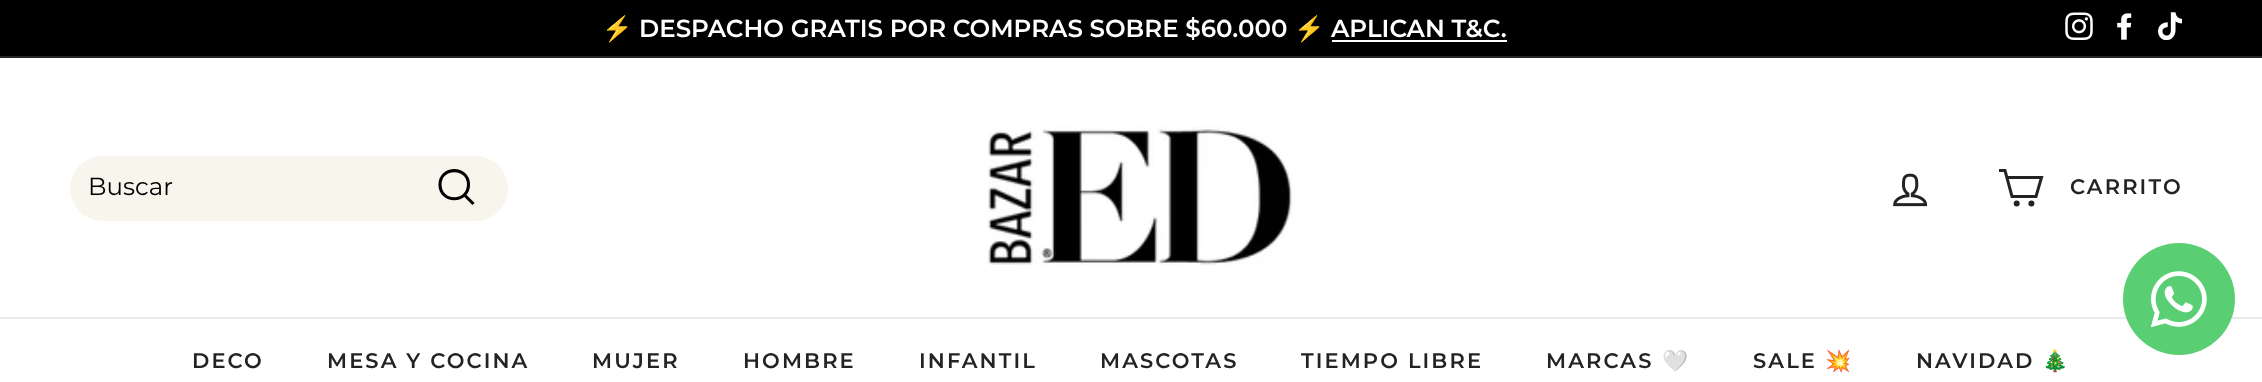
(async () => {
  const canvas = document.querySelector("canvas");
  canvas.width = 2262;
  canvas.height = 382;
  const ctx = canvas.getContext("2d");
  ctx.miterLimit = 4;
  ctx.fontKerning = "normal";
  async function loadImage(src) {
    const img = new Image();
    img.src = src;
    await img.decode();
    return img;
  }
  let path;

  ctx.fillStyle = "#ffffff";
  ctx.fillRect(0, 0, 2262, 382);
  ctx.fillStyle = "#000000";
  ctx.fillRect(0, 0, 2262, 56);
  ctx.fillStyle = "#ffffff";
  ctx.fillRect(1332, 40, 175, 2);
  ctx.drawImage(await loadImage("img/1.png"), 2065, 12, 28, 28);
  ctx.drawImage(await loadImage("img/2.png"), 2117, 13, 15, 27);
  ctx.drawImage(await loadImage("img/3.png"), 2158, 12, 24, 28);
  ctx.fillStyle = "#262626";
  ctx.fillRect(0, 56, 2262, 2);
  ctx.fillStyle = "#f7f5ec";
  ctx.beginPath();
  ctx.roundRect(70, 156, 438, 65, 32.5);
  ctx.fill();
  path = new Path2D("M468.5 184.5C468.5 203.5 440 203.5 440 184.5C440 166 468.5 166 468.5 184.5ZM473.5 204L464.5 195");
  ctx.strokeStyle = "#000000";
  ctx.lineWidth = 3.1;
  ctx.stroke(path);
  ctx.drawImage(await loadImage("img/4.png"), 988, 126, 305, 140);
  ctx.drawImage(await loadImage("img/5.png"), 1893, 173, 35, 34);
  path = new Path2D("M2007 177.5H2041.5L2036 196.5H2012L2005 170.5H1999");
  ctx.strokeStyle = "#232323";
  ctx.lineWidth = 3;
  ctx.stroke(path);
  ctx.beginPath();
  ctx.arc(2016.7, 203.6, 1.5, 0, Math.PI * 2);
  ctx.stroke();
  ctx.beginPath();
  ctx.arc(2031.4, 203.6, 1.5, 0, Math.PI * 2);
  ctx.stroke();
  ctx.fillStyle = "#e9e9e9";
  ctx.fillRect(0, 317, 2262, 2);
  ctx.fillStyle = "#59ce72";
  ctx.beginPath();
  ctx.arc(2179, 299, 56, 0, Math.PI * 2);
  ctx.fill();
  ctx.drawImage(await loadImage("img/6.png"), 2151, 271, 56, 56);
  ctx.font = "bold 24.5px Noto Color Emoji";
  ctx.fillStyle = "#ffffff";
  ctx.fillText("⚡", 602, 37);
  ctx.font = "600 24.5px Montserrat";
  ctx.fillText("DESPACHO GRATIS POR COMPRAS SOBRE $60.000", 639, 37);
  ctx.font = "bold 24.5px Noto Color Emoji";
  ctx.fillText("⚡", 1294, 37);
  ctx.font = "600 24.5px Montserrat";
  ctx.fillText("APLICAN T&C.", 1331, 37);
  ctx.font = "24.5px Montserrat";
  ctx.fillStyle = "#000000";
  ctx.fillText("Buscar", 88, 195);
  ctx.letterSpacing = "2.1px";
  ctx.font = "600 21px Montserrat";
  ctx.fillStyle = "#232323";
  for (const [text, x, y] of [
    ["CARRITO", 2070, 194],
    ["DECO", 192, 368],
    ["MESA Y COCINA", 327, 368],
    ["MUJER", 592, 368],
    ["HOMBRE", 743, 368],
    ["INFANTIL", 919, 368],
    ["MASCOTAS", 1100, 368],
    ["TIEMPO LIBRE", 1301, 368],
    ["MARCAS", 1546, 368],
  ]) {
    ctx.fillText(text, x, y);
  }
  ctx.font = "bold 21px Noto Color Emoji";
  ctx.fillText("🤍", 1662, 368);
  ctx.font = "600 21px Montserrat";
  ctx.fillText("SALE", 1753, 368);
  ctx.font = "bold 21px Noto Color Emoji";
  ctx.fillText("💥", 1825, 368);
  ctx.font = "600 21px Montserrat";
  ctx.fillText("NAVIDAD", 1916, 368);
  ctx.font = "bold 21px Noto Color Emoji";
  ctx.fillText("🎄", 2042, 368);
})();
